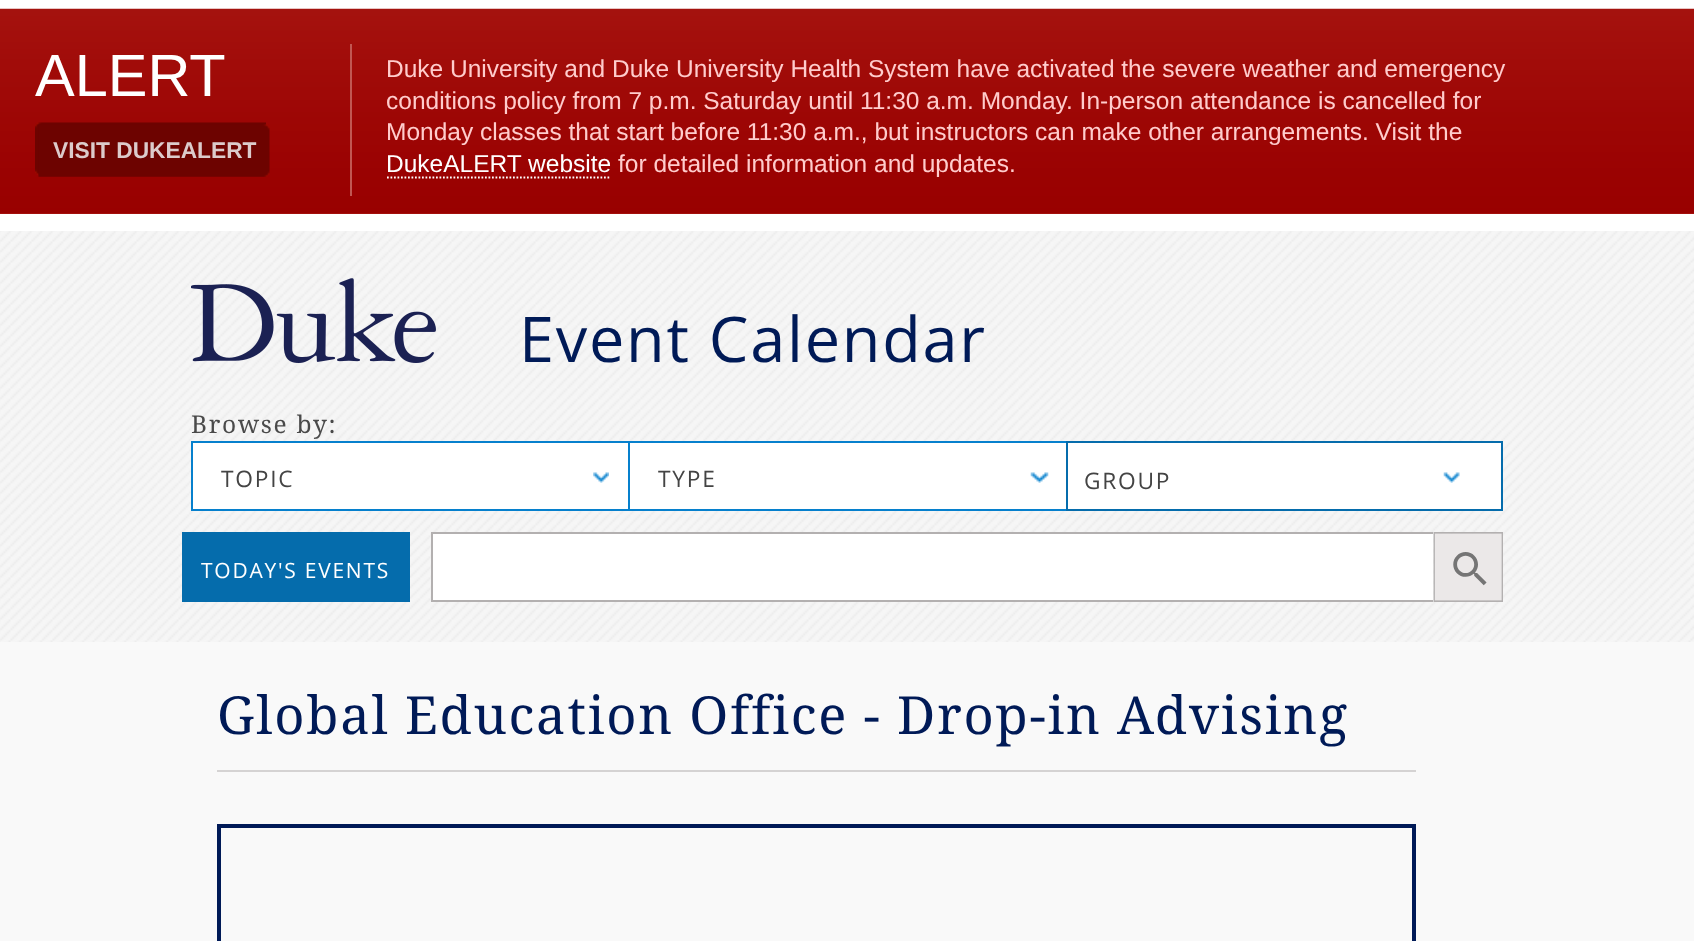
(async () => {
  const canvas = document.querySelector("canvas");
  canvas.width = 1694;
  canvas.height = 941;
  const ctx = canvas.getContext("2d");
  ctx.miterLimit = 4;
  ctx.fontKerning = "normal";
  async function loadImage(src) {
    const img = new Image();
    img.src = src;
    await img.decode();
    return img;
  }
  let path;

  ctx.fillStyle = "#ffffff";
  ctx.fillRect(0, 0, 1694, 941);
  ctx.fillStyle = "#ad1e17";
  ctx.fillRect(0, 213, 1694, 1);
  ctx.drawImage(await loadImage("img/1.png"), 0, 8, 1694, 206);
  ctx.drawImage(await loadImage("img/2.png"), 35, 122, 231, 53);
  ctx.drawImage(await loadImage("img/3.png"), 38, 124, 232, 53);
  ctx.fillStyle = "#c15752";
  ctx.fillRect(350, 44, 2, 152);
  path = new Path2D("M387 177.5H611");
  ctx.strokeStyle = "#ffffff";
  ctx.lineWidth = 1.8;
  ctx.setLineDash([1.75, 1.75]);
  ctx.stroke(path);
  ctx.drawImage(await loadImage("img/4.png"), 0, 231, 1694, 411);
  ctx.drawImage(await loadImage("img/5.png"), 191, 278, 245, 85);
  for (const [x, y, w, h, color] of [
    [193, 443, 435, 66, "#ffffff"],
    [191, 441, 875, 2, "#0680cd"],
    [191, 509, 875, 2, "#0680cd"],
    [191, 441, 2, 70, "#0680cd"],
  ]) {
    ctx.fillStyle = color;
    ctx.fillRect(x, y, w, h);
  }
  ctx.drawImage(await loadImage("img/6.png"), 593, 472, 16, 11);
  ctx.fillStyle = "#ffffff";
  ctx.fillRect(630, 443, 436, 66);
  ctx.fillStyle = "#0680cd";
  ctx.fillRect(628, 441, 2, 70);
  ctx.drawImage(await loadImage("img/7.png"), 1030, 472, 19, 11);
  ctx.fillStyle = "#ffffff";
  ctx.beginPath();
  ctx.rect(1067, 442, 435, 68);
  ctx.fill();
  ctx.strokeStyle = "#056cac";
  ctx.lineWidth = 2;
  ctx.setLineDash([]);
  ctx.stroke();
  ctx.drawImage(await loadImage("img/8.png"), 1443, 472, 17, 11);
  for (const [x, y, w, h, color] of [
    [182, 532, 228, 70, "#056cac"],
    [433, 534, 1000, 66, "#ffffff"],
    [431, 532, 1002, 2, "#b3b0b0"],
    [431, 600, 1002, 2, "#b3b0b0"],
    [431, 532, 2, 70, "#b3b0b0"],
  ]) {
    ctx.fillStyle = color;
    ctx.fillRect(x, y, w, h);
  }
  ctx.drawImage(await loadImage("img/9.png"), 1433, 532, 70, 70);
  ctx.fillStyle = "#f9f9f9";
  ctx.fillRect(0, 642, 1694, 299);
  ctx.fillStyle = "#d5d3d3";
  ctx.fillRect(217, 770, 1199, 2);
  ctx.strokeStyle = "#001a57";
  ctx.lineWidth = 4;
  ctx.strokeRect(219, 826, 1195, 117);
  ctx.font = "59.5px Liberation Sans";
  ctx.fillStyle = "#ffffff";
  ctx.fillText("ALERT", 35, 96);
  ctx.font = "bold 22.75px Liberation Sans";
  ctx.fillStyle = "#dccbcb";
  ctx.fillText("VISIT DUKEALERT", 53, 158);
  ctx.font = "24.5px Liberation Sans";
  ctx.fillStyle = "#ffcccc";
  for (const [text, x, y] of [
    ["Duke University and Duke University Health System have activated the severe weather and emergency", 386, 77],
    ["conditions policy from 7 p.m. Saturday until 11:30 a.m. Monday. In-person attendance is cancelled for", 386, 109],
    ["Monday classes that start before 11:30 a.m., but instructors can make other arrangements. Visit the", 386, 140],
  ]) {
    ctx.fillText(text, x, y);
  }
  ctx.fillStyle = "#ffffff";
  ctx.fillText("DukeALERT website", 386, 172);
  ctx.fillStyle = "#ffcccc";
  ctx.fillText("for detailed information and updates.", 618, 172);
  ctx.letterSpacing = "1.75px";
  ctx.font = "63px Open Sans";
  ctx.fillStyle = "#001a57";
  ctx.fillText("Event Calendar", 519, 362);
  ctx.font = "24.5px Droid Serif";
  ctx.fillStyle = "#4a4a4a";
  ctx.fillText("Browse by:", 191, 433);
  ctx.save();
  ctx.beginPath();
  ctx.rect(221, 457, 372, 42);
  ctx.clip();
  ctx.font = "22.75px Open Sans";
  ctx.fillStyle = "#444444";
  ctx.fillText("TOPIC", 221, 487);
  ctx.restore();
  ctx.save();
  ctx.beginPath();
  ctx.rect(658, 457, 373, 42);
  ctx.clip();
  ctx.font = "22.75px Open Sans";
  ctx.fillStyle = "#444444";
  ctx.fillText("TYPE", 658, 487);
  ctx.restore();
  ctx.font = "22.75px Open Sans";
  ctx.fillStyle = "#444444";
  ctx.fillText("GROUP", 1084, 489);
  ctx.font = "21px Open Sans";
  ctx.fillStyle = "#ffffff";
  ctx.fillText("TODAY'S EVENTS", 201, 578);
  ctx.font = "52.5px Droid Serif";
  ctx.fillStyle = "#001a57";
  ctx.fillText("Global Education Office - Drop-in Advising", 217, 734);
})();
